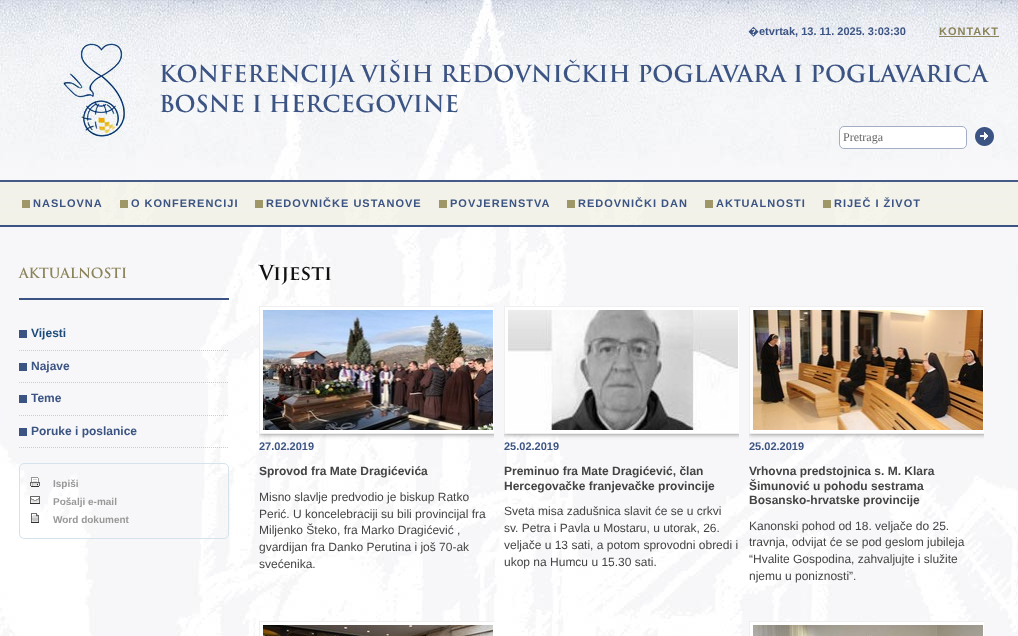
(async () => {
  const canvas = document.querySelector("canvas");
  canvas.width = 1018;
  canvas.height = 636;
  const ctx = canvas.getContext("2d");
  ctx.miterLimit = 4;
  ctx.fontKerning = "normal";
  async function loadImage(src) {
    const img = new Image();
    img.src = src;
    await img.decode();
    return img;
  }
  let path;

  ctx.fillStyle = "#ffffff";
  ctx.fillRect(0, 0, 1018, 636);
  ctx.drawImage(await loadImage("img/1.png"), 0, 0, 1018, 636);
  ctx.drawImage(await loadImage("img/2.png"), 0, 180, 1018, 47);
  ctx.fillStyle = "#8b835a";
  ctx.fillRect(939, 36, 60, 1);
  ctx.drawImage(await loadImage("img/3.png"), 59, 40, 75, 98);
  ctx.fillStyle = "#ffffff";
  ctx.beginPath();
  ctx.roundRect(839.5, 126.5, 127, 22, 4.5);
  ctx.fill();
  ctx.strokeStyle = "#a3aec5";
  ctx.stroke();
  ctx.drawImage(await loadImage("img/4.png"), 975, 127, 19, 19);
  for (const [x, y, w, h, color] of [
    [22, 200, 8, 8, "#a09768"],
    [120, 200, 8, 8, "#a09768"],
    [255, 200, 8, 8, "#a09768"],
    [439, 200, 8, 8, "#a09768"],
    [567, 200, 8, 8, "#a09768"],
    [705, 200, 8, 8, "#a09768"],
    [823, 200, 8, 8, "#a09768"],
    [19, 298, 210, 2, "#3c5483"],
  ]) {
    ctx.fillStyle = color;
    ctx.fillRect(x, y, w, h);
  }
  path = new Path2D("M19 350.5H229");
  ctx.strokeStyle = "#cccccc";
  ctx.setLineDash([1, 1]);
  ctx.stroke(path);
  ctx.fillRect(19, 330, 8, 8);
  path = new Path2D("M19 382.5H229");
  ctx.stroke(path);
  ctx.fillRect(19, 363, 8, 8);
  path = new Path2D("M19 415.5H229");
  ctx.stroke(path);
  ctx.fillRect(19, 395, 8, 8);
  path = new Path2D("M19 447.5H229");
  ctx.stroke(path);
  ctx.fillRect(19, 428, 8, 8);
  ctx.beginPath();
  ctx.roundRect(19.5, 463.5, 209, 75, 4.5);
  ctx.strokeStyle = "#d5e4ec";
  ctx.setLineDash([]);
  ctx.stroke();
  ctx.drawImage(await loadImage("img/5.png"), 30, 477, 10, 10);
  ctx.drawImage(await loadImage("img/6.png"), 30, 496, 10, 8);
  ctx.drawImage(await loadImage("img/7.png"), 31, 513, 8, 10);
  ctx.save();
  ctx.beginPath();
  ctx.rect(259, 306, 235, 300);
  ctx.clip();
  ctx.fillStyle = "#777777";
  ctx.filter = "blur(2.5px)";
  ctx.beginPath();
  ctx.rect(259, 306, 238, 128);
  ctx.fill();
  ctx.filter = "none";
  ctx.restore();
  ctx.fillStyle = "#ffffff";
  ctx.fillRect(260, 307, 234, 126);
  ctx.save();
  ctx.beginPath();
  ctx.rect(259, 306, 235, 300);
  ctx.clip();
  ctx.strokeStyle = "#efefef";
  ctx.strokeRect(259.5, 306.5, 237, 127);
  ctx.restore();
  ctx.drawImage(await loadImage("img/8.png"), 263, 310, 230, 120);
  ctx.save();
  ctx.beginPath();
  ctx.rect(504, 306, 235, 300);
  ctx.clip();
  ctx.fillStyle = "#777777";
  ctx.filter = "blur(2.5px)";
  ctx.beginPath();
  ctx.rect(504, 306, 238, 128);
  ctx.fill();
  ctx.filter = "none";
  ctx.restore();
  ctx.fillRect(505, 307, 234, 126);
  ctx.save();
  ctx.beginPath();
  ctx.rect(504, 306, 235, 300);
  ctx.clip();
  ctx.strokeStyle = "#efefef";
  ctx.strokeRect(504.5, 306.5, 237, 127);
  ctx.restore();
  ctx.drawImage(await loadImage("img/9.png"), 508, 310, 230, 120);
  ctx.save();
  ctx.beginPath();
  ctx.rect(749, 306, 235, 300);
  ctx.clip();
  ctx.fillStyle = "#777777";
  ctx.filter = "blur(2.5px)";
  ctx.beginPath();
  ctx.rect(749, 306, 238, 128);
  ctx.fill();
  ctx.filter = "none";
  ctx.restore();
  ctx.fillRect(750, 307, 234, 126);
  ctx.save();
  ctx.beginPath();
  ctx.rect(749, 306, 235, 300);
  ctx.clip();
  ctx.strokeStyle = "#efefef";
  ctx.strokeRect(749.5, 306.5, 237, 127);
  ctx.restore();
  ctx.drawImage(await loadImage("img/10.png"), 753, 310, 230, 120);
  ctx.fillRect(269, 622, 225, 14);
  ctx.save();
  ctx.beginPath();
  ctx.rect(259, 621, 235, 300);
  ctx.clip();
  ctx.strokeStyle = "#efefef";
  ctx.strokeRect(259.5, 621.5, 237, 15);
  ctx.restore();
  ctx.drawImage(await loadImage("img/11.png"), 263, 625, 230, 11);
  ctx.fillRect(750, 622, 234, 14);
  ctx.save();
  ctx.beginPath();
  ctx.rect(749, 621, 235, 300);
  ctx.clip();
  ctx.strokeStyle = "#efefef";
  ctx.strokeRect(749.5, 621.5, 237, 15);
  ctx.restore();
  ctx.drawImage(await loadImage("img/12.png"), 753, 625, 230, 11);
  ctx.font = "bold 11px Noto Sans";
  ctx.fillStyle = "#3c5483";
  ctx.fillText("�", 748, 35);
  ctx.font = "bold 11px Liberation Sans";
  ctx.fillText("etvrtak, 13. 11. 2025. 3:03:30", 759, 35);
  ctx.letterSpacing = "1px";
  ctx.fillStyle = "#8b835a";
  ctx.fillText("KONTAKT", 939, 35);
  ctx.letterSpacing = "0px";
  ctx.font = "bold 30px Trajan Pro";
  ctx.fillStyle = "#3c5483";
  ctx.fillText("KONFERENCIJA VIŠIH REDOVNIČKIH POGLAVARA I POGLAVARICA", 159, 82);
  ctx.fillText("BOSNE I HERCEGOVINE", 159, 112);
  ctx.font = "12px Liberation Serif";
  ctx.fillStyle = "#666666";
  ctx.fillText("Pretraga", 843, 141);
  ctx.letterSpacing = "1px";
  ctx.font = "bold 11px Liberation Sans";
  ctx.fillStyle = "#3c5483";
  for (const [text, x, y] of [
    ["NASLOVNA", 33, 207],
    ["O KONFERENCIJI", 131, 207],
    ["REDOVNIČKE USTANOVE", 266, 207],
    ["POVJERENSTVA", 450, 207],
    ["REDOVNIČKI DAN", 578, 207],
    ["AKTUALNOSTI", 716, 207],
    ["RIJEČ I ŽIVOT", 834, 207],
  ]) {
    ctx.fillText(text, x, y);
  }
  ctx.letterSpacing = "0px";
  ctx.font = "bold 18px Trajan Pro";
  ctx.fillStyle = "#8b835a";
  ctx.fillText("AKTUALNOSTI", 19, 278);
  ctx.font = "bold 12px Liberation Sans";
  ctx.fillStyle = "#1c4b7a";
  ctx.fillText("Vijesti", 31, 337);
  ctx.fillStyle = "#3c5483";
  for (const [text, x, y] of [
    ["Najave", 31, 370],
    ["Teme", 31, 402],
    ["Poruke i poslanice", 31, 435],
  ]) {
    ctx.fillText(text, x, y);
  }
  ctx.font = "bold 10px Liberation Sans";
  ctx.fillStyle = "#999999";
  for (const [text, x, y] of [
    ["Ispiši", 53, 487],
    ["Pošalji e-mail", 53, 505],
    ["Word dokument", 53, 523],
  ]) {
    ctx.fillText(text, x, y);
  }
  ctx.font = "bold 26.5px Trajan Pro";
  ctx.fillStyle = "#111111";
  ctx.fillText("Vijesti", 259, 280);
  ctx.font = "bold 11px Liberation Sans";
  ctx.fillStyle = "#3c5483";
  ctx.fillText("27.02.2019", 259, 450);
  ctx.font = "bold 12px Liberation Sans";
  ctx.fillStyle = "#444444";
  ctx.fillText("Sprovod fra Mate Dragićevića", 259, 475);
  ctx.font = "12px Liberation Sans";
  for (const [text, x, y] of [
    ["Misno slavlje predvodio je biskup Ratko", 259, 501],
    ["Perić. U koncelebraciji su bili provincijal fra", 259, 518],
    ["Miljenko Šteko, fra Marko Dragićević ,", 259, 534],
    ["gvardijan fra Danko Perutina i još 70-ak", 259, 551],
    ["svećenika.", 259, 568],
  ]) {
    ctx.fillText(text, x, y);
  }
  ctx.font = "bold 11px Liberation Sans";
  ctx.fillStyle = "#3c5483";
  ctx.fillText("25.02.2019", 504, 450);
  ctx.font = "bold 12px Liberation Sans";
  ctx.fillStyle = "#444444";
  ctx.fillText("Preminuo fra Mate Dragićević, član", 504, 475);
  ctx.fillText("Hercegovačke franjevačke provincije", 504, 490);
  ctx.font = "12px Liberation Sans";
  for (const [text, x, y] of [
    ["Sveta misa zadušnica slavit će se u crkvi", 504, 515],
    ["sv. Petra i Pavla u Mostaru, u utorak, 26.", 504, 532],
    ["veljače u 13 sati, a potom sprovodni obredi i", 504, 549],
    ["ukop na Humcu u 15.30 sati.", 504, 566],
  ]) {
    ctx.fillText(text, x, y);
  }
  ctx.font = "bold 11px Liberation Sans";
  ctx.fillStyle = "#3c5483";
  ctx.fillText("25.02.2019", 749, 450);
  ctx.font = "bold 12px Liberation Sans";
  ctx.fillStyle = "#444444";
  for (const [text, x, y] of [
    ["Vrhovna predstojnica s. M. Klara", 749, 475],
    ["Šimunović u pohodu sestrama", 749, 490],
    ["Bosansko-hrvatske provincije", 749, 504],
  ]) {
    ctx.fillText(text, x, y);
  }
  ctx.font = "12px Liberation Sans";
  for (const [text, x, y] of [
    ["Kanonski pohod od 18. veljače do 25.", 749, 530],
    ["travnja, odvijat će se pod geslom jubileja", 749, 546],
    ["“Hvalite Gospodina, zahvaljujte i služite", 749, 563],
    ["njemu u poniznosti”.", 749, 580],
  ]) {
    ctx.fillText(text, x, y);
  }
})();
